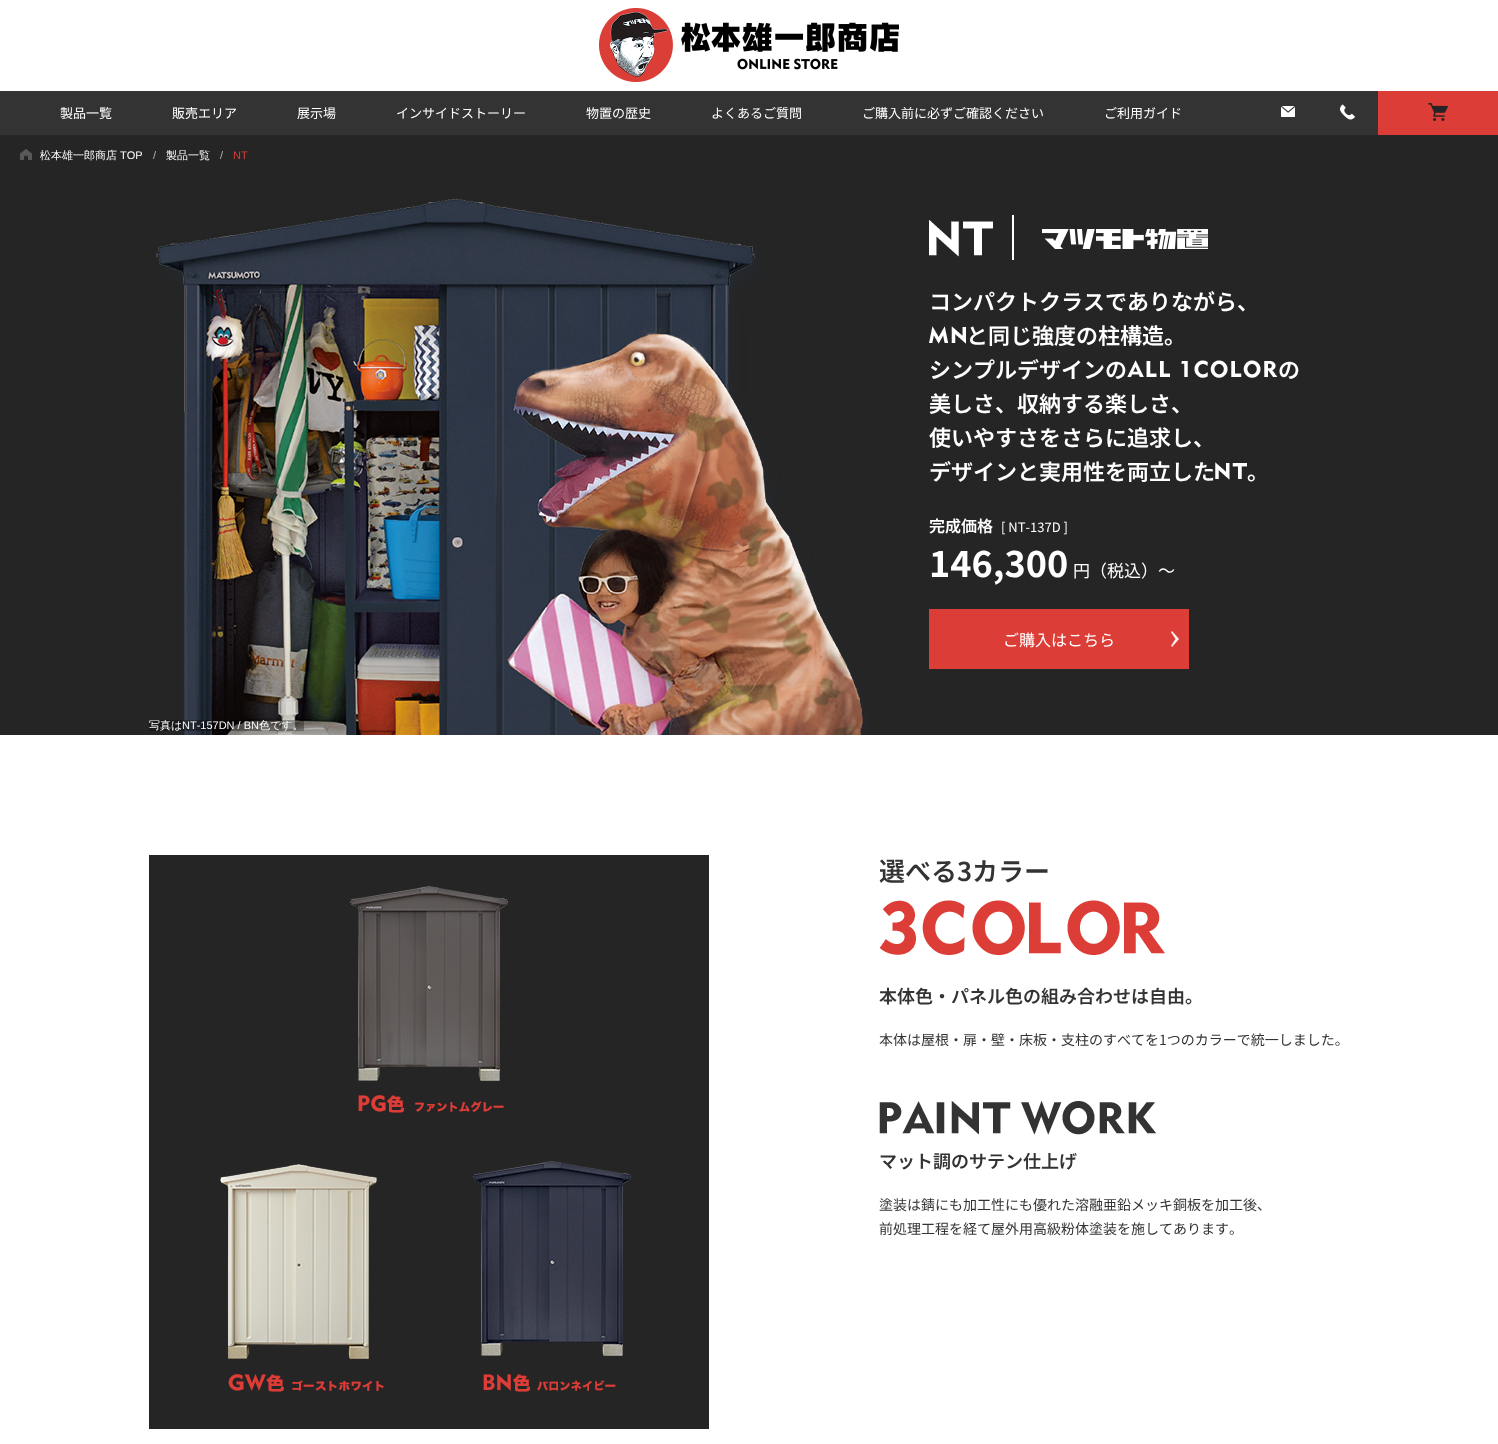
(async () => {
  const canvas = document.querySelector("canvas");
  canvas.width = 1498;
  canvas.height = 1444;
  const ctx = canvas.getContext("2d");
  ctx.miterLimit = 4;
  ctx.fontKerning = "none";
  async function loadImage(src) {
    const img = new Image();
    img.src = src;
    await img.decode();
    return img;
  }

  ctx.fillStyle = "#ffffff";
  ctx.fillRect(0, 0, 1498, 1444);
  ctx.drawImage(await loadImage("img/1.png"), 599, 8, 300, 74);
  ctx.fillStyle = "#333333";
  ctx.fillRect(0, 91, 1378, 44);
  ctx.drawImage(await loadImage("img/2.png"), 1281, 106, 14, 11);
  ctx.drawImage(await loadImage("img/3.png"), 1340, 104, 15, 16);
  ctx.fillStyle = "#dc3d37";
  ctx.fillRect(1378, 91, 120, 44);
  ctx.drawImage(await loadImage("img/4.png"), 1428, 103, 20, 18);
  ctx.fillStyle = "#252525";
  ctx.fillRect(0, 135, 1498, 600);
  ctx.drawImage(await loadImage("img/5.png"), 20, 149, 12, 11);
  ctx.drawImage(await loadImage("img/6.png"), 929, 215, 279, 45);
  ctx.drawImage(await loadImage("img/7.png"), 929, 326, 37, 18);
  ctx.drawImage(await loadImage("img/8.png"), 1127, 360, 151, 18);
  ctx.drawImage(await loadImage("img/9.png"), 1215, 462, 32, 18);
  ctx.fillStyle = "#dc3d37";
  ctx.fillRect(929, 609, 260, 60);
  ctx.drawImage(await loadImage("img/10.png"), 1171, 631, 8, 16);
  ctx.drawImage(await loadImage("img/11.png"), 156, 199, 712, 536);
  ctx.fillStyle = "rgba(0, 0, 0, 0.3)";
  ctx.fillRect(149, 720, 155, 11);
  ctx.drawImage(await loadImage("img/12.png"), 149, 855, 560, 574);
  ctx.drawImage(await loadImage("img/13.png"), 879, 900, 286, 55);
  ctx.drawImage(await loadImage("img/14.png"), 879, 1101, 278, 34);
  ctx.font = "13px Noto Sans JP";
  ctx.fillStyle = "#ffffff";
  for (const [text, x, y] of [
    ["製品一覧", 60, 118],
    ["販売エリア", 172, 118],
    ["展示場", 297, 118],
    ["インサイドストーリー", 396, 118],
    ["物置の歴史", 586, 118],
    ["よくあるご質問", 711, 118],
    ["ご購入前に必ずご確認ください", 862, 118],
    ["ご利用ガイド", 1104, 118],
  ]) {
    ctx.fillText(text, x, y);
  }
  ctx.font = "500 11px WenQuanYi Zen Hei";
  ctx.fillText("松本雄一郎商店", 40, 159);
  ctx.font = "11px Liberation Sans";
  ctx.fillText("TOP", 120, 159);
  ctx.fillStyle = "#b0b0b0";
  ctx.fillText("/", 153, 159);
  ctx.font = "500 11px WenQuanYi Zen Hei";
  ctx.fillStyle = "#ffffff";
  ctx.fillText("製品一覧", 166, 159);
  ctx.font = "11px Liberation Sans";
  ctx.fillStyle = "#b0b0b0";
  ctx.fillText("/", 220, 159);
  ctx.fillStyle = "#dc3d37";
  ctx.fillText("NT", 233, 159);
  ctx.font = "600 22px Noto Sans JP";
  ctx.fillStyle = "#ffffff";
  for (const [text, x, y] of [
    ["コンパクトクラスでありながら、", 929, 310],
    ["と同じ強度の柱構造。", 966, 344],
    ["シンプルデザインの", 929, 378],
    ["の", 1278, 378],
    ["美しさ、収納する楽しさ、", 929, 412],
    ["使いやすさをさらに追求し、", 929, 446],
    ["デザインと実用性を両立した", 929, 480],
    ["。", 1247, 480],
  ]) {
    ctx.fillText(text, x, y);
  }
  ctx.font = "600 16px Noto Sans JP";
  ctx.fillText("完成価格", 929, 532);
  ctx.font = "13px Noto Sans JP";
  ctx.fillText("[ NT-137D ]", 1001, 532);
  ctx.font = "bold 36px Noto Sans JP";
  ctx.fillText("146,300", 929, 577);
  ctx.font = "17px Noto Sans JP";
  ctx.fillText("円（税込）～", 1073, 577);
  ctx.font = "16px Noto Sans JP";
  ctx.fillText("ご購入はこちら", 1003, 646);
  ctx.font = "500 11px WenQuanYi Zen Hei";
  ctx.fillText("写真は", 149, 729);
  ctx.font = "11px Liberation Sans";
  ctx.fillText("NT-157DN / BN", 182, 729);
  ctx.font = "500 11px WenQuanYi Zen Hei";
  ctx.fillText("色です。", 259, 729);
  ctx.font = "600 26px Noto Sans JP";
  ctx.fillStyle = "#333333";
  ctx.fillText("選べる3カラー", 879, 881);
  ctx.font = "600 18px Noto Sans JP";
  ctx.fillText("本体色・パネル色の組み合わせは自由。", 879, 1003);
  ctx.font = "14px Noto Sans JP";
  ctx.fillText("本体は屋根・扉・壁・床板・支柱のすべてを1つのカラーで統一しました。", 879, 1045);
  ctx.font = "600 18px Noto Sans JP";
  ctx.fillText("マット調のサテン仕上げ", 879, 1168);
  ctx.font = "14px Noto Sans JP";
  ctx.fillText("塗装は錆にも加工性にも優れた溶融亜鉛メッキ銅板を加工後、", 879, 1210);
  ctx.fillText("前処理工程を経て屋外用高級粉体塗装を施してあります。", 879, 1234);
})();
